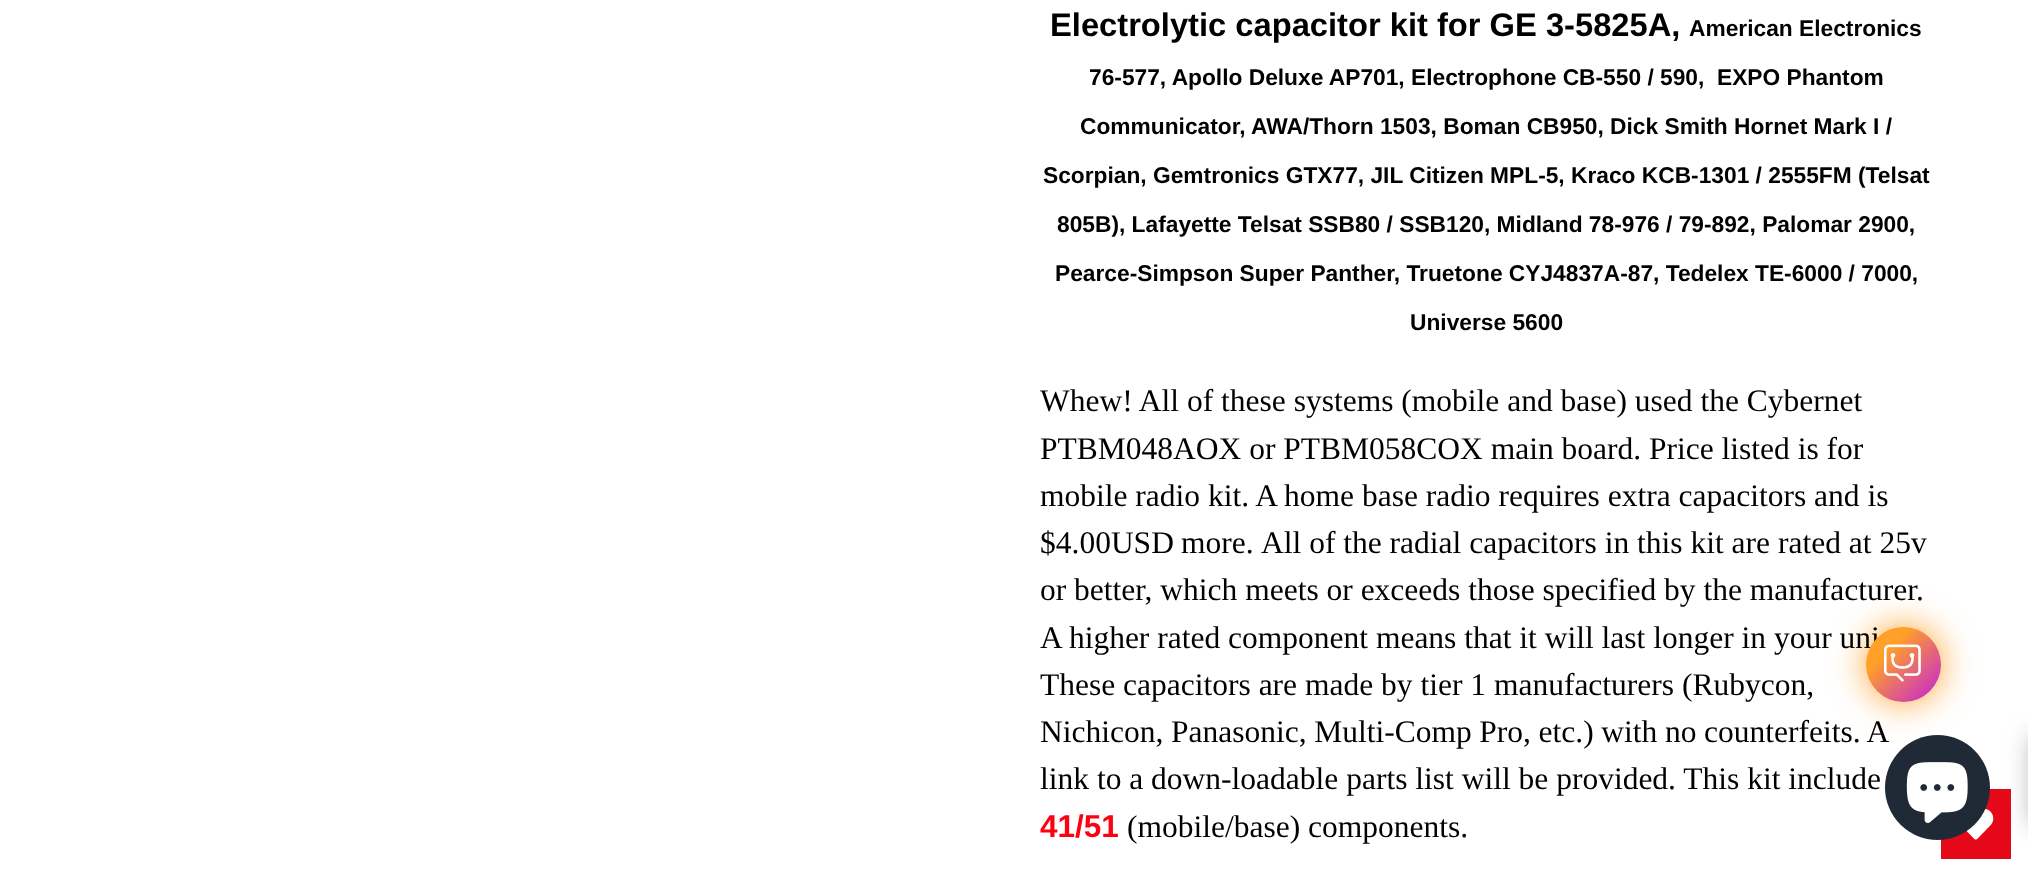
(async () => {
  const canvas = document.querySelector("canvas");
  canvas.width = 2028;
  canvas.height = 876;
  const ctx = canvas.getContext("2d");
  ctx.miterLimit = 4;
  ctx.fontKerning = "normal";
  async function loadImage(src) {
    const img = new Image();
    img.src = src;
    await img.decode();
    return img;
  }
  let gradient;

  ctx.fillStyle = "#ffffff";
  ctx.fillRect(0, 0, 2028, 876);
  ctx.fillStyle = "#ffa028";
  ctx.filter = "blur(17.5px)";
  ctx.beginPath();
  ctx.roundRect(1866, 627, 75, 75, 37.5);
  ctx.fill();
  ctx.filter = "none";
  ctx.fillStyle = "rgba(117, 117, 117, 0.5)";
  ctx.filter = "blur(12px)";
  ctx.beginPath();
  ctx.rect(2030, 737, 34, 87);
  ctx.fill();
  ctx.filter = "none";
  ctx.fillStyle = "#e50819";
  ctx.fillRect(1941, 789, 70, 70);
  ctx.drawImage(await loadImage("img/3.png"), 1966, 809, 28, 31);
  ctx.font = "bold 32.7px Liberation Sans";
  ctx.fillStyle = "#000000";
  ctx.fillText("Electrolytic capacitor kit for GE 3-5825A,", 1050, 36);
  ctx.font = "bold 22.75px Liberation Sans";
  for (const [text, x, y] of [
    ["American Electronics", 1689, 36],
    ["76-577, Apollo Deluxe AP701, Electrophone CB-550 / 590,  EXPO Phantom", 1089, 85],
    ["Communicator, AWA/Thorn 1503, Boman CB950, Dick Smith Hornet Mark I /", 1080, 134],
    ["Scorpian, Gemtronics GTX77, JIL Citizen MPL-5, Kraco KCB-1301 / 2555FM (Telsat", 1043, 183],
    ["805B), Lafayette Telsat SSB80 / SSB120, Midland 78-976 / 79-892, Palomar 2900,", 1057, 232],
    ["Pearce-Simpson Super Panther, Truetone CYJ4837A-87, Tedelex TE-6000 / 7000,", 1055, 281],
    ["Universe 5600", 1410, 330],
  ]) {
    ctx.fillText(text, x, y);
  }
  ctx.font = "31.5px Liberation Serif";
  for (const [text, x, y] of [
    ["Whew! All of these systems (mobile and base) used the Cybernet", 1040, 411],
    ["PTBM048AOX or PTBM058COX main board. Price listed is for", 1040, 459],
    ["mobile radio kit. A home base radio requires extra capacitors and is", 1040, 506],
    ["$4.00USD", 1040, 553],
    ["more.", 1181, 553],
    ["All of the radial capacitors in this kit are rated at 25v", 1261, 553],
    ["or better, which meets or exceeds those specified by the manufacturer.", 1040, 600],
    ["A higher rated component means that it will last longer in your uni", 1040, 648],
    ["These capacitors are made by tier 1 manufacturers (Rubycon,", 1040, 695],
  ]) {
    ctx.fillText(text, x, y);
  }
  ctx.wordSpacing = "-0.25px";
  ctx.fillText("Nichicon, Panasonic, Multi-Comp Pro, etc.) with no counterfeits. A", 1040, 742);
  ctx.wordSpacing = "0px";
  ctx.fillText("link to a down-loadable parts list will be provided. This kit include", 1040, 789);
  ctx.font = "bold 31.5px Liberation Sans";
  ctx.fillStyle = "#ff0010";
  ctx.fillText("41/51", 1040, 837);
  ctx.font = "31.5px Liberation Serif";
  ctx.fillStyle = "#000000";
  ctx.fillText("(mobile/base) components.", 1127, 837);
  gradient = ctx.createLinearGradient(1866, 627, 1941, 702);
  gradient.addColorStop(0.3, "#ffa028");
  gradient.addColorStop(1, "#c21ddf");
  ctx.fillStyle = gradient;
  ctx.beginPath();
  ctx.arc(1903.5, 664.5, 37.5, 0, Math.PI * 2);
  ctx.fill();
  ctx.drawImage(await loadImage("img/1.png"), 1884, 644, 37, 38);
  ctx.fillStyle = "#202a36";
  ctx.beginPath();
  ctx.arc(1937.5, 787.5, 52.5, 0, Math.PI * 2);
  ctx.fill();
  ctx.drawImage(await loadImage("img/2.png"), 1906, 762, 62, 61);
})();
